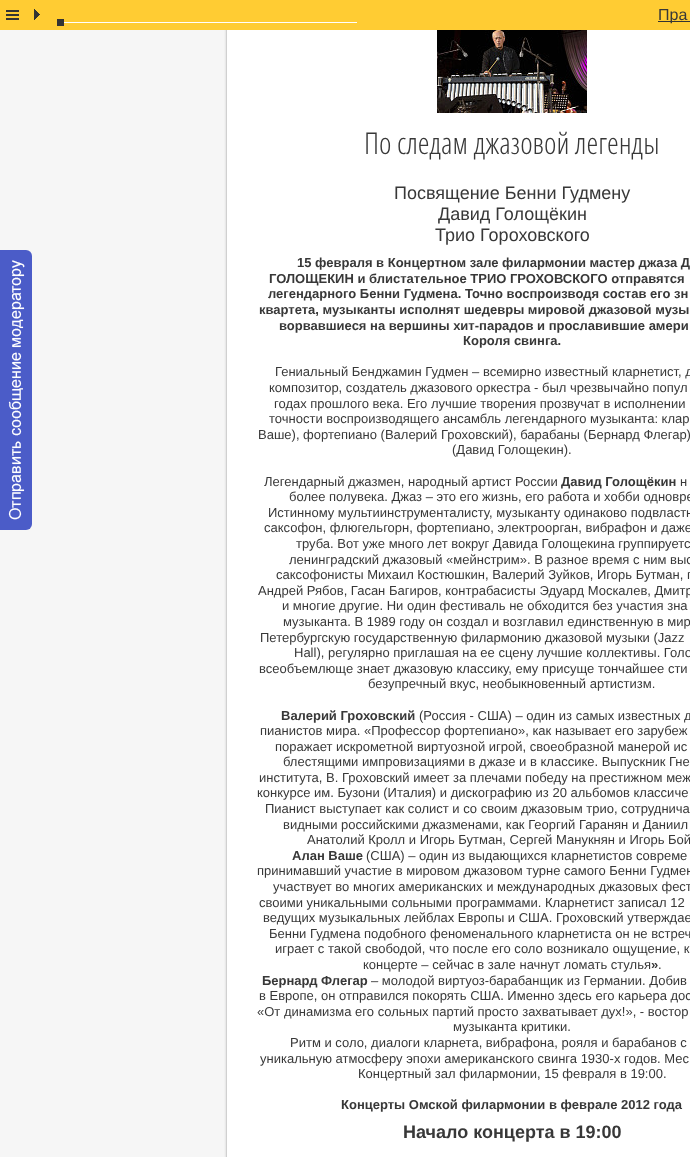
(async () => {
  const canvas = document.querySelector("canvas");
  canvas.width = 690;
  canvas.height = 1157;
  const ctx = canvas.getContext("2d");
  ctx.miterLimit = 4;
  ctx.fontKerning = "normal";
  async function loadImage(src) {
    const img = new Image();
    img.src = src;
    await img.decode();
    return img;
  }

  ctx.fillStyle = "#f6f6f6";
  ctx.fillRect(0, 0, 690, 1157);
  ctx.fillStyle = "#4b5cc8";
  ctx.beginPath();
  ctx.roundRect(0, 250, 32, 280, [0, 6, 6, 0]);
  ctx.fill();
  ctx.drawImage(await loadImage("img/1.png"), 8, 260, 17, 260);
  ctx.fillStyle = "#d0d0d0";
  ctx.filter = "blur(1px)";
  ctx.beginPath();
  ctx.rect(226, -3, 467, 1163);
  ctx.fill();
  ctx.filter = "none";
  ctx.fillStyle = "#ffffff";
  ctx.fillRect(227, 30, 463, 1127);
  ctx.strokeStyle = "#d0d0d0";
  ctx.strokeRect(226.5, -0.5, 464, 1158);
  ctx.fillStyle = "#ffcc33";
  ctx.fillRect(0, 0, 690, 30);
  ctx.drawImage(await loadImage("img/2.png"), 6, 10, 13, 10);
  ctx.drawImage(await loadImage("img/3.png"), 34, 9, 6, 11);
  for (const [x, y, w, h, color] of [
    [658, 21, 32, 1, "#333333"],
    [57, 22, 300, 1, "#ffffff"],
    [57, 19, 7, 7, "#333333"],
  ]) {
    ctx.fillStyle = color;
    ctx.fillRect(x, y, w, h);
  }
  ctx.drawImage(await loadImage("img/4.png"), 437, 30, 150, 83);
  ctx.font = "16px Liberation Sans";
  ctx.fillStyle = "#383838";
  ctx.fillText("Пра", 658, 20);
  ctx.font = "300 30px Open Sans Condensed";
  ctx.fillText("По следам джазовой легенды", 364, 154);
  ctx.font = "18px Liberation Sans";
  for (const [text, x, y] of [
    ["Посвящение Бенни Гудмену", 394, 199],
    ["Давид Голощёкин", 438, 220],
    ["Трио Гороховского", 435, 241],
  ]) {
    ctx.fillText(text, x, y);
  }
  ctx.font = "bold 13px Liberation Sans";
  for (const [text, x, y] of [
    ["15 февраля в Концертном зале филармонии мастер джаза Д", 297, 267],
    ["ГОЛОЩЕКИН и блистательное ТРИО ГРОХОВСКОГО отправятся", 269, 283],
    ["легендарного Бенни Гудмена. Точно воспроизводя состав его зн", 268, 298],
    ["квартета, музыканты исполнят шедевры мировой джазовой музы", 259, 314],
    ["ворвавшиеся на вершины хит-парадов и прославившие амери", 279, 330],
    ["Короля свинга.", 463, 345],
  ]) {
    ctx.fillText(text, x, y);
  }
  ctx.font = "13px Liberation Sans";
  for (const [text, x, y] of [
    ["Гениальный Бенджамин Гудмен – всемирно известный кларнетист, д", 275, 376],
    ["композитор, создатель джазового оркестра - был чрезвычайно попул", 269, 392],
    ["годах прошлого века. Его лучшие творения прозвучат в исполнении", 274, 408],
    ["точности воспроизводящего ансамбль легендарного музыканта: клар", 269, 423],
    ["Ваше), фортепиано (Валерий Гроховский), барабаны (Бернард Флегар)", 258, 439],
    ["(Давид Голощекин).", 452, 454],
    ["Легендарный джазмен, народный артист России", 264, 486],
  ]) {
    ctx.fillText(text, x, y);
  }
  ctx.font = "bold 13px Liberation Sans";
  ctx.fillText("Давид Голощёкин", 561, 486);
  ctx.font = "13px Liberation Sans";
  for (const [text, x, y] of [
    ["н", 680, 486],
    ["более полувека. Джаз – это его жизнь, его работа и хобби одновре", 289, 501],
    ["Истинному мультиинструменталисту, музыканту одинаково подвластн", 268, 517],
    ["саксофон, флюгельгорн, фортепиано, электроорган, вибрафон и даже", 264, 532],
    ["труба. Вот уже много лет вокруг Давида Голощекина группируетс", 296, 548],
    ["ленинградский джазовый «мейнстрим». В разное время с ним выс", 289, 564],
    ["саксофонисты Михаил Костюшкин, Валерий Зуйков, Игорь Бутман, г", 276, 579],
    ["Андрей Рябов, Гасан Багиров, контрабасисты Эдуард Москалев, Дмитр", 258, 595],
    ["и многие другие. Ни один фестиваль не обходится без участия зна", 282, 610],
    ["музыканта. В 1989 году он создал и возглавил единственную в мир", 283, 626],
    ["Петербургскую государственную филармонию джазовой музыки (Jazz", 260, 642],
    ["Hall), регулярно приглашая на ее сцену лучшие коллективы. Голо", 294, 657],
    ["всеобъемлюще знает джазовую классику, ему присуще тончайшее сти", 259, 673],
    ["безупречный вкус, необыкновенный артистизм.", 368, 688],
  ]) {
    ctx.fillText(text, x, y);
  }
  ctx.font = "bold 13px Liberation Sans";
  ctx.fillText("Валерий Гроховский", 281, 720);
  ctx.font = "13px Liberation Sans";
  for (const [text, x, y] of [
    ["(Россия - США) – один из самых известных д", 419, 720],
    ["пианистов мира. «Профессор фортепиано», как называет его зарубеж", 260, 735],
    ["поражает искрометной виртуозной игрой, своеобразной манерой ис", 275, 751],
    ["блестящими импровизациями в джазе и в классике. Выпускник Гне", 283, 766],
    ["института, В. Гроховский имеет за плечами победу на престижном меж", 259, 782],
    ["конкурсе им. Бузони (Италия) и дискографию из 20 альбомов классиче", 257, 797],
    ["Пианист выступает как солист и со своим джазовым трио, сотруднича", 265, 813],
    ["видными российскими джазменами, как Георгий Гаранян и Даниил", 283, 829],
    ["Анатолий Кролл и Игорь Бутман, Сергей Манукнян и Игорь Бой", 307, 844],
  ]) {
    ctx.fillText(text, x, y);
  }
  ctx.font = "bold 13px Liberation Sans";
  ctx.fillText("Алан Ваше", 292, 860);
  ctx.font = "13px Liberation Sans";
  for (const [text, x, y] of [
    ["(США) – один из выдающихся кларнетистов совреме", 366, 860],
    ["принимавший участие в мировом джазовом турне самого Бенни Гудмен", 257, 875],
    ["участвует во многих американских и международных джазовых фест", 273, 891],
    ["своими уникальными сольными программами. Кларнетист записал 12", 259, 907],
    ["ведущих музыкальных лейблах Европы и США. Гроховский утверждае", 263, 922],
    ["Бенни Гудмена подобного феноменального кларнетиста он не встреч", 269, 938],
    ["играет с такой свободой, что после его соло возникало ощущение, к", 275, 953],
    ["концерте – сейчас в зале начнут ломать стулья", 363, 969],
  ]) {
    ctx.fillText(text, x, y);
  }
  ctx.font = "bold 13px Liberation Sans";
  ctx.fillText("»", 651, 969);
  ctx.font = "13px Liberation Sans";
  ctx.fillText(".", 658, 969);
  ctx.font = "bold 13px Liberation Sans";
  ctx.fillText("Бернард Флегар", 262, 985);
  ctx.font = "13px Liberation Sans";
  for (const [text, x, y] of [
    ["– молодой виртуоз-барабанщик из Германии. Добив", 371, 985],
    ["в Европе, он отправился покорять США. Именно здесь его карьера дос", 259, 1000],
    ["«От динамизма его сольных партий просто захватывает дух!», - востор", 257, 1016],
    ["музыканта критики.", 453, 1031],
    ["Ритм и соло, диалоги кларнета, вибрафона, рояля и барабанов с", 290, 1047],
    ["уникальную атмосферу эпохи американского свинга 1930-х годов. Мес", 260, 1063],
    ["Концертный зал филармонии, 15 февраля в 19:00.", 358, 1078],
  ]) {
    ctx.fillText(text, x, y);
  }
  ctx.font = "bold 13px Liberation Sans";
  ctx.fillText("Концерты Омской филармонии в феврале 2012 года", 341, 1109);
  ctx.font = "bold 18px Liberation Sans";
  ctx.fillText("Начало концерта в 19:00", 403, 1138);
})();
